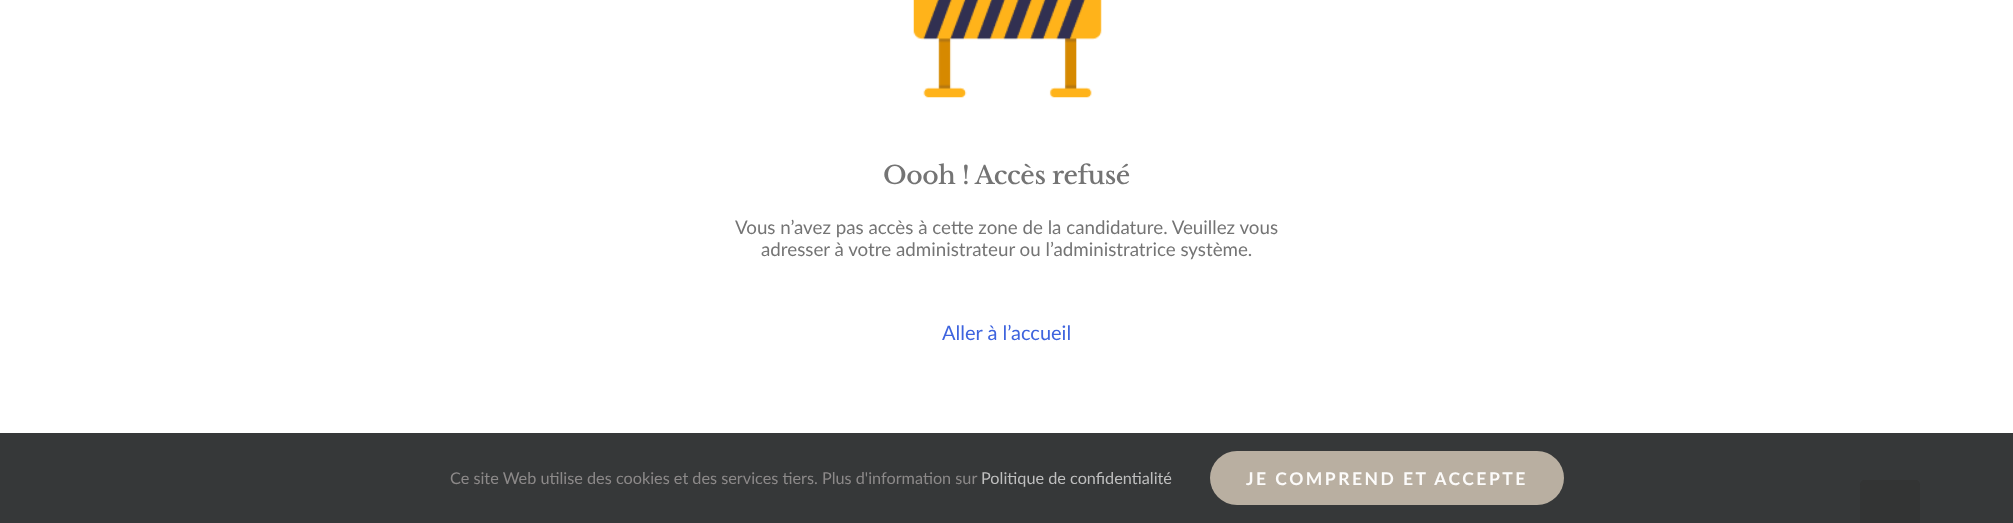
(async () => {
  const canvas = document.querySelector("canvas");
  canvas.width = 2013;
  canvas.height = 523;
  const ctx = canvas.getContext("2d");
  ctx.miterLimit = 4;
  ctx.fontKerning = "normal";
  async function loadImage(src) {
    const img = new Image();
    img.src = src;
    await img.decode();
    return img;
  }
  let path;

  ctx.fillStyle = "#ffffff";
  ctx.fillRect(0, 0, 2013, 523);
  ctx.drawImage(await loadImage("img/1.png"), 913, 0, 189, 98);
  ctx.fillStyle = "#363839";
  ctx.fillRect(0, 433, 2013, 90);
  ctx.fillStyle = "#b9afa1";
  ctx.beginPath();
  ctx.roundRect(1210, 451, 354, 54, 27);
  ctx.fill();
  ctx.fillStyle = "#333434";
  path = new Path2D("M1865 480H1915C1918 480 1920 482 1920 485V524H1860V485C1860 482 1862 480 1865 480Z");
  ctx.fill(path);
  ctx.letterSpacing = "-0.4px";
  ctx.font = "500 25px Libre Baskerville";
  ctx.fillStyle = "#747474";
  ctx.fillText("Oooh ! Accès refusé", 883, 184);
  ctx.letterSpacing = "0px";
  ctx.font = "18.75px Lato";
  ctx.fillText("Vous n’avez pas accès à cette zone de la candidature. Veuillez vous", 735, 234);
  ctx.fillText("adresser à votre administrateur ou l’administratrice système.", 761, 256);
  ctx.font = "20px Lato";
  ctx.fillStyle = "#3e64de";
  ctx.fillText("Aller à l’accueil", 942, 340);
  ctx.font = "16.25px Lato";
  ctx.fillStyle = "#8c8989";
  ctx.fillText("Ce site Web utilise des cookies et des services tiers. Plus d'information sur", 450, 484);
  ctx.fillStyle = "#bfbfbf";
  ctx.fillText("Politique de confidentialité", 981, 484);
  ctx.letterSpacing = "2.5px";
  ctx.font = "bold 17.5px Lato";
  ctx.fillStyle = "#fcfbfa";
  ctx.fillText("JE COMPREND ET ACCEPTE", 1246, 485);
})();
